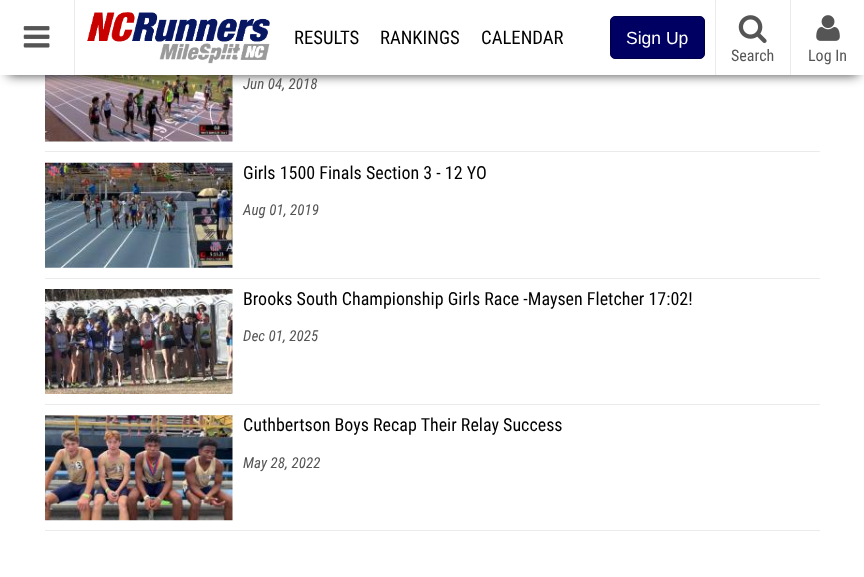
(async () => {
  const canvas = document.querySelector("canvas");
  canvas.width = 864;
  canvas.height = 577;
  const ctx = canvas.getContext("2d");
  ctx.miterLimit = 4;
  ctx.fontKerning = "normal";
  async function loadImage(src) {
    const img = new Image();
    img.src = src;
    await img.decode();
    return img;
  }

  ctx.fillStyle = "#ffffff";
  ctx.fillRect(0, 0, 864, 577);
  ctx.drawImage(await loadImage("img/5.png"), 45, 75, 188, 67);
  ctx.fillStyle = "rgba(0, 0, 0, 0.75)";
  ctx.filter = "blur(6px)";
  ctx.beginPath();
  ctx.rect(8, 15, 850, 60);
  ctx.fill();
  ctx.filter = "none";
  ctx.fillStyle = "#ffffff";
  ctx.fillRect(0, 2, 864, 73);
  ctx.drawImage(await loadImage("img/1.png"), 87, 12, 183, 52);
  ctx.fillStyle = "#ebebeb";
  ctx.fillRect(74, 0, 1, 75);
  ctx.drawImage(await loadImage("img/2.png"), 23, 26, 27, 22);
  ctx.fillStyle = "#000062";
  ctx.beginPath();
  ctx.roundRect(610.5, 16.5, 94, 42, 4.5);
  ctx.fill();
  ctx.strokeStyle = "#000049";
  ctx.stroke();
  ctx.fillStyle = "#ebebeb";
  ctx.fillRect(715, 0, 1, 75);
  ctx.drawImage(await loadImage("img/3.png"), 738, 15, 29, 28);
  ctx.fillRect(790, 0, 1, 75);
  ctx.drawImage(await loadImage("img/4.png"), 816, 15, 24, 26);
  ctx.fillRect(45, 151, 775, 1);
  ctx.fillRect(45, 278, 775, 1);
  ctx.drawImage(await loadImage("img/6.png"), 45, 162, 188, 106);
  ctx.fillRect(45, 404, 775, 1);
  ctx.drawImage(await loadImage("img/7.png"), 45, 289, 188, 105);
  ctx.fillRect(45, 530, 775, 1);
  ctx.drawImage(await loadImage("img/8.png"), 45, 415, 188, 106);
  ctx.font = "18.75px Roboto Condensed";
  ctx.fillStyle = "#000000";
  for (const [text, x, y] of [
    ["RESULTS", 294, 44],
    ["RANKINGS", 380, 44],
    ["CALENDAR", 481, 44],
  ]) {
    ctx.fillText(text, x, y);
  }
  ctx.font = "17.5px Liberation Sans";
  ctx.fillStyle = "#ffffff";
  ctx.fillText("Sign Up", 626, 44);
  ctx.font = "16px Roboto Condensed";
  ctx.fillStyle = "#555555";
  ctx.fillText("Search", 731, 61);
  ctx.fillText("Log In", 808, 61);
  ctx.font = "italic 15px Roboto Condensed";
  ctx.fillText("Jun 04, 2018", 243, 89);
  ctx.font = "18px Roboto Condensed";
  ctx.fillStyle = "#000000";
  ctx.fillText("Girls 1500 Finals Section 3 - 12 YO", 243, 179);
  ctx.font = "italic 15px Roboto Condensed";
  ctx.fillStyle = "#555555";
  ctx.fillText("Aug 01, 2019", 243, 215);
  ctx.font = "18px Roboto Condensed";
  ctx.fillStyle = "#000000";
  ctx.fillText("Brooks South Championship Girls Race -Maysen Fletcher 17:02!", 243, 305);
  ctx.font = "italic 15px Roboto Condensed";
  ctx.fillStyle = "#555555";
  ctx.fillText("Dec 01, 2025", 243, 341);
  ctx.font = "18px Roboto Condensed";
  ctx.fillStyle = "#000000";
  ctx.fillText("Cuthbertson Boys Recap Their Relay Success", 243, 431);
  ctx.font = "italic 15px Roboto Condensed";
  ctx.fillStyle = "#555555";
  ctx.fillText("May 28, 2022", 243, 468);
})();
